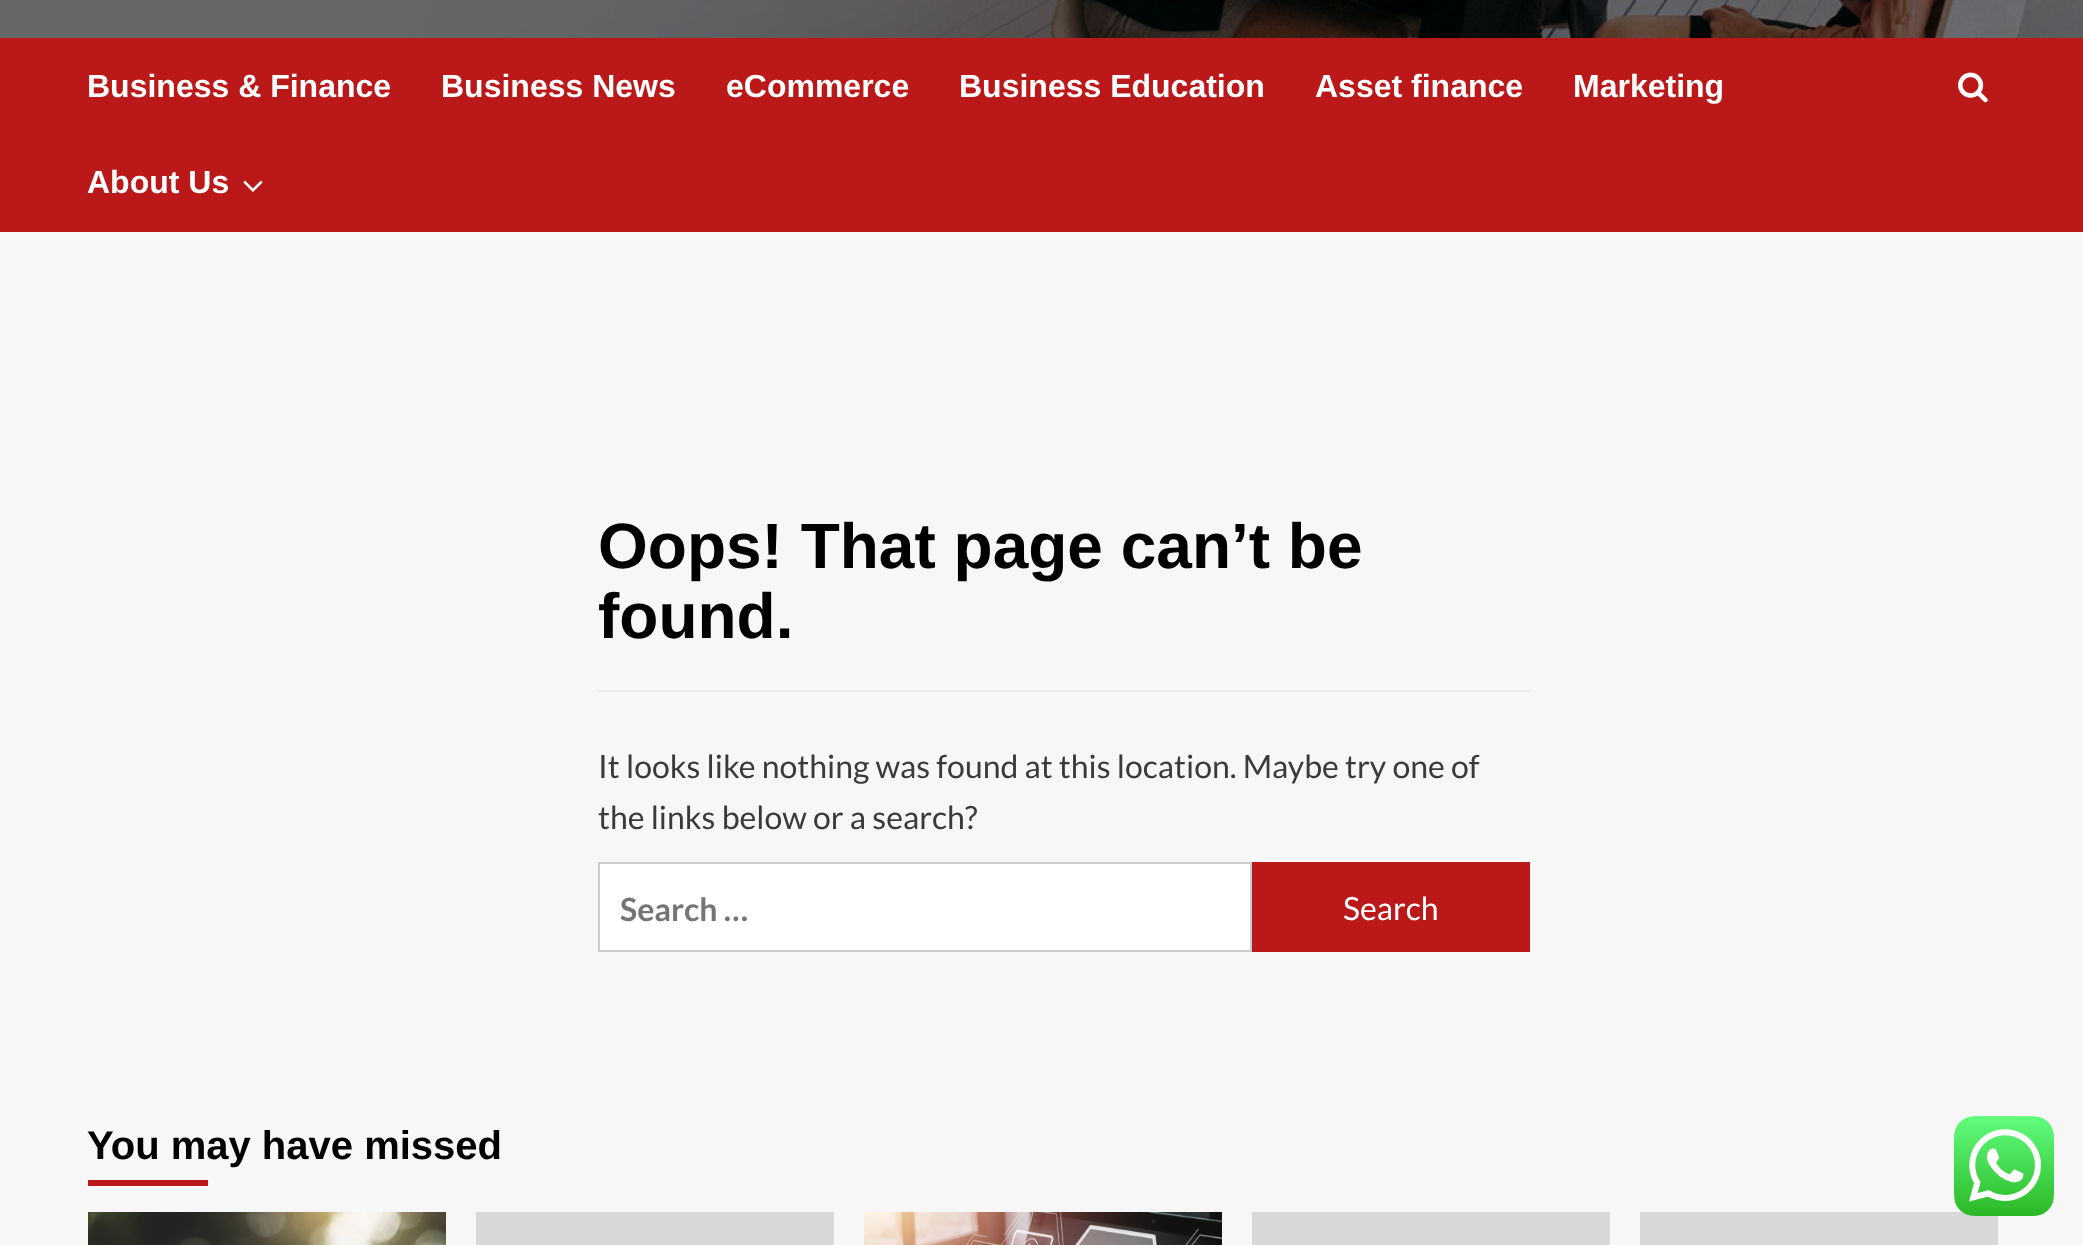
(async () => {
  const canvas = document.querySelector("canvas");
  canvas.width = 2083;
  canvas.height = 1245;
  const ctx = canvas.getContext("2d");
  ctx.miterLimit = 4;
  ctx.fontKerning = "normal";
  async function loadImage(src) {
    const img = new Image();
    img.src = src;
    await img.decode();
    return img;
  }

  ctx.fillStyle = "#f7f7f7";
  ctx.fillRect(0, 0, 2083, 1245);
  ctx.drawImage(await loadImage("img/1.png"), 0, 0, 2083, 38);
  ctx.fillStyle = "#bb1919";
  ctx.fillRect(0, 38, 2083, 194);
  ctx.drawImage(await loadImage("img/2.png"), 243, 180, 20, 12);
  ctx.drawImage(await loadImage("img/3.png"), 1958, 72, 30, 31);
  ctx.fillStyle = "#eeeeee";
  ctx.fillRect(598, 690, 932, 2);
  ctx.fillStyle = "#ffffff";
  ctx.beginPath();
  ctx.rect(599, 863, 652, 88);
  ctx.fill();
  ctx.strokeStyle = "#cccccc";
  ctx.lineWidth = 2;
  ctx.stroke();
  ctx.fillStyle = "#bb1919";
  ctx.fillRect(1252, 862, 278, 90);
  ctx.fillRect(88, 1180, 120, 6);
  ctx.drawImage(await loadImage("img/4.png"), 88, 1212, 358, 33);
  ctx.fillStyle = "#d8d8d8";
  ctx.fillRect(476, 1212, 358, 33);
  ctx.drawImage(await loadImage("img/5.png"), 864, 1212, 358, 33);
  ctx.fillRect(1252, 1212, 358, 33);
  ctx.fillRect(1640, 1212, 358, 33);
  ctx.drawImage(await loadImage("img/6.png"), 1954, 1116, 100, 100);
  ctx.font = "bold 32px Liberation Sans";
  ctx.fillStyle = "#ffffff";
  for (const [text, x, y] of [
    ["Business & Finance", 87, 97],
    ["Business News", 441, 97],
    ["eCommerce", 726, 97],
    ["Business Education", 959, 97],
    ["Asset finance", 1315, 97],
    ["Marketing", 1573, 97],
    ["About Us", 87, 193],
  ]) {
    ctx.fillText(text, x, y);
  }
  ctx.font = "bold 64px Liberation Sans";
  ctx.fillStyle = "#000000";
  ctx.fillText("Oops! That page can’t be", 598, 568);
  ctx.fillText("found.", 598, 638);
  ctx.font = "32px Lato";
  ctx.fillStyle = "#3a3a3a";
  ctx.fillText("It looks like nothing was found at this location. Maybe try one of", 598, 778);
  ctx.fillText("the links below or a search?", 598, 829);
  ctx.font = "bold 32px Lato";
  ctx.fillStyle = "#757575";
  ctx.fillText("Search …", 620, 921);
  ctx.font = "32px Lato";
  ctx.fillStyle = "#ffffff";
  ctx.fillText("Search", 1343, 920);
  ctx.font = "bold 40px Liberation Sans";
  ctx.fillStyle = "#000000";
  ctx.fillText("You may have missed", 87, 1159);
})();
